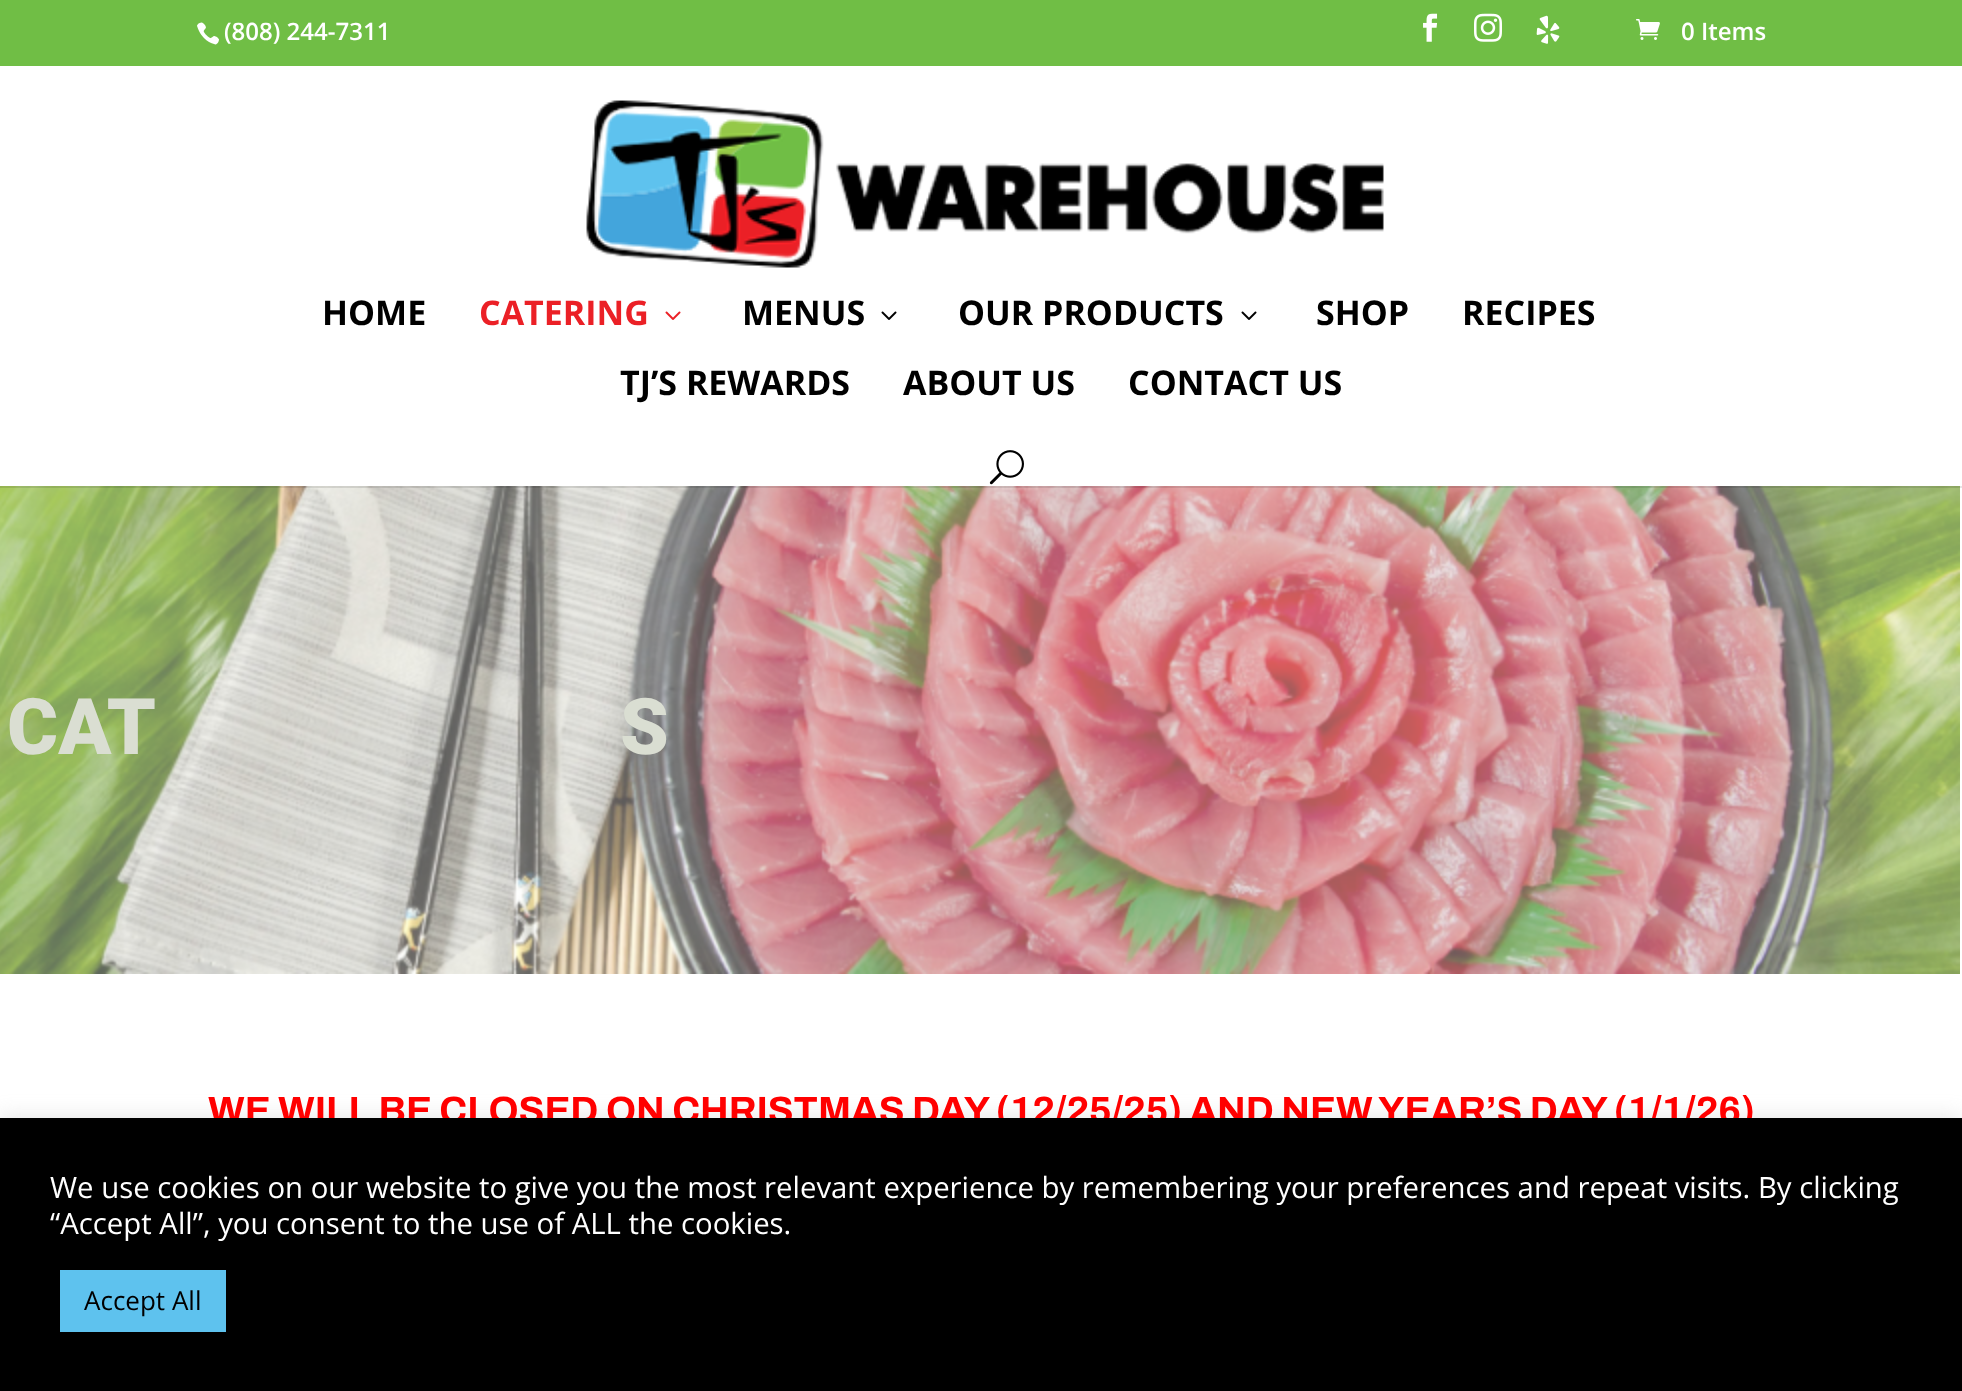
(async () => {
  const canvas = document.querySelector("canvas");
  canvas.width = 1962;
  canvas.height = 1391;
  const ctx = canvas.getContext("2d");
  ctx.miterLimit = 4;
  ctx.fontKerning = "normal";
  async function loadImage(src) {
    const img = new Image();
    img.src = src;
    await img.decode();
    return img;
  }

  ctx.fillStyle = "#ffffff";
  ctx.fillRect(0, 0, 1962, 1391);
  ctx.fillStyle = "#70be45";
  ctx.fillRect(0, 0, 1962, 66);
  ctx.drawImage(await loadImage("img/1.png"), 197, 22, 22, 23);
  ctx.drawImage(await loadImage("img/2.png"), 1423, 13, 15, 29);
  ctx.drawImage(await loadImage("img/3.png"), 1474, 13, 28, 29);
  ctx.drawImage(await loadImage("img/4.png"), 1536, 15, 24, 29);
  ctx.drawImage(await loadImage("img/5.png"), 1636, 19, 24, 21);
  ctx.drawImage(await loadImage("img/10.png"), 0, 486, 1960, 488);
  ctx.fillStyle = "rgba(0, 0, 0, 0.1)";
  ctx.fillRect(0, 486, 1962, 2);
  ctx.drawImage(await loadImage("img/6.png"), 586, 100, 798, 168);
  ctx.drawImage(await loadImage("img/7.png"), 665, 311, 16, 9);
  ctx.drawImage(await loadImage("img/8.png"), 881, 311, 16, 9);
  ctx.drawImage(await loadImage("img/8.png"), 1241, 311, 16, 9);
  ctx.drawImage(await loadImage("img/9.png"), 989, 450, 35, 35);
  ctx.fillStyle = "rgba(172, 171, 171, 0.3)";
  ctx.filter = "blur(10px)";
  ctx.beginPath();
  ctx.rect(0, 1116, 1962, 274);
  ctx.fill();
  ctx.filter = "none";
  ctx.font = "600 24px Open Sans";
  ctx.fillStyle = "#ffffff";
  ctx.fillText("(808) 244-7311", 224, 40);
  ctx.fillText("0 Items", 1681, 40);
  ctx.font = "bold 34px Open Sans";
  ctx.fillStyle = "#000000";
  ctx.fillText("HOME", 322, 325);
  ctx.fillStyle = "#eb2026";
  ctx.fillText("CATERING", 479, 325);
  ctx.fillStyle = "#000000";
  for (const [text, x, y] of [
    ["MENUS", 742, 325],
    ["OUR PRODUCTS", 958, 325],
    ["SHOP", 1316, 325],
    ["RECIPES", 1462, 325],
    ["TJ’S REWARDS", 620, 395],
    ["ABOUT US", 903, 395],
    ["CONTACT US", 1128, 395],
  ]) {
    ctx.fillText(text, x, y);
  }
  ctx.font = "900 78px Roboto";
  ctx.fillStyle = "#daded2";
  ctx.fillText("CAT", 7, 754);
  ctx.fillText("S", 620, 754);
  ctx.font = "600 38px Archivo";
  ctx.fillStyle = "#ff0000";
  ctx.fillText("WE WILL BE CLOSED ON CHRISTMAS DAY (12/25/25) AND NEW YEAR’S DAY (1/1/26)", 208, 1123);
  ctx.fillStyle = "#000000";
  ctx.fillRect(0, 1118, 1962, 273);
  ctx.font = "29.33px Open Sans";
  ctx.fillStyle = "#ffffff";
  ctx.fillText("We use cookies on our website to give you the most relevant experience by remembering your preferences and repeat visits. By clicking", 50, 1198);
  ctx.fillText("“Accept All”, you consent to the use of ALL the cookies.", 50, 1234);
  ctx.fillStyle = "#5ec2ee";
  ctx.fillRect(60, 1270, 166, 62);
  ctx.font = "26px Open Sans";
  ctx.fillStyle = "#000000";
  ctx.fillText("Accept All", 84, 1310);
})();
